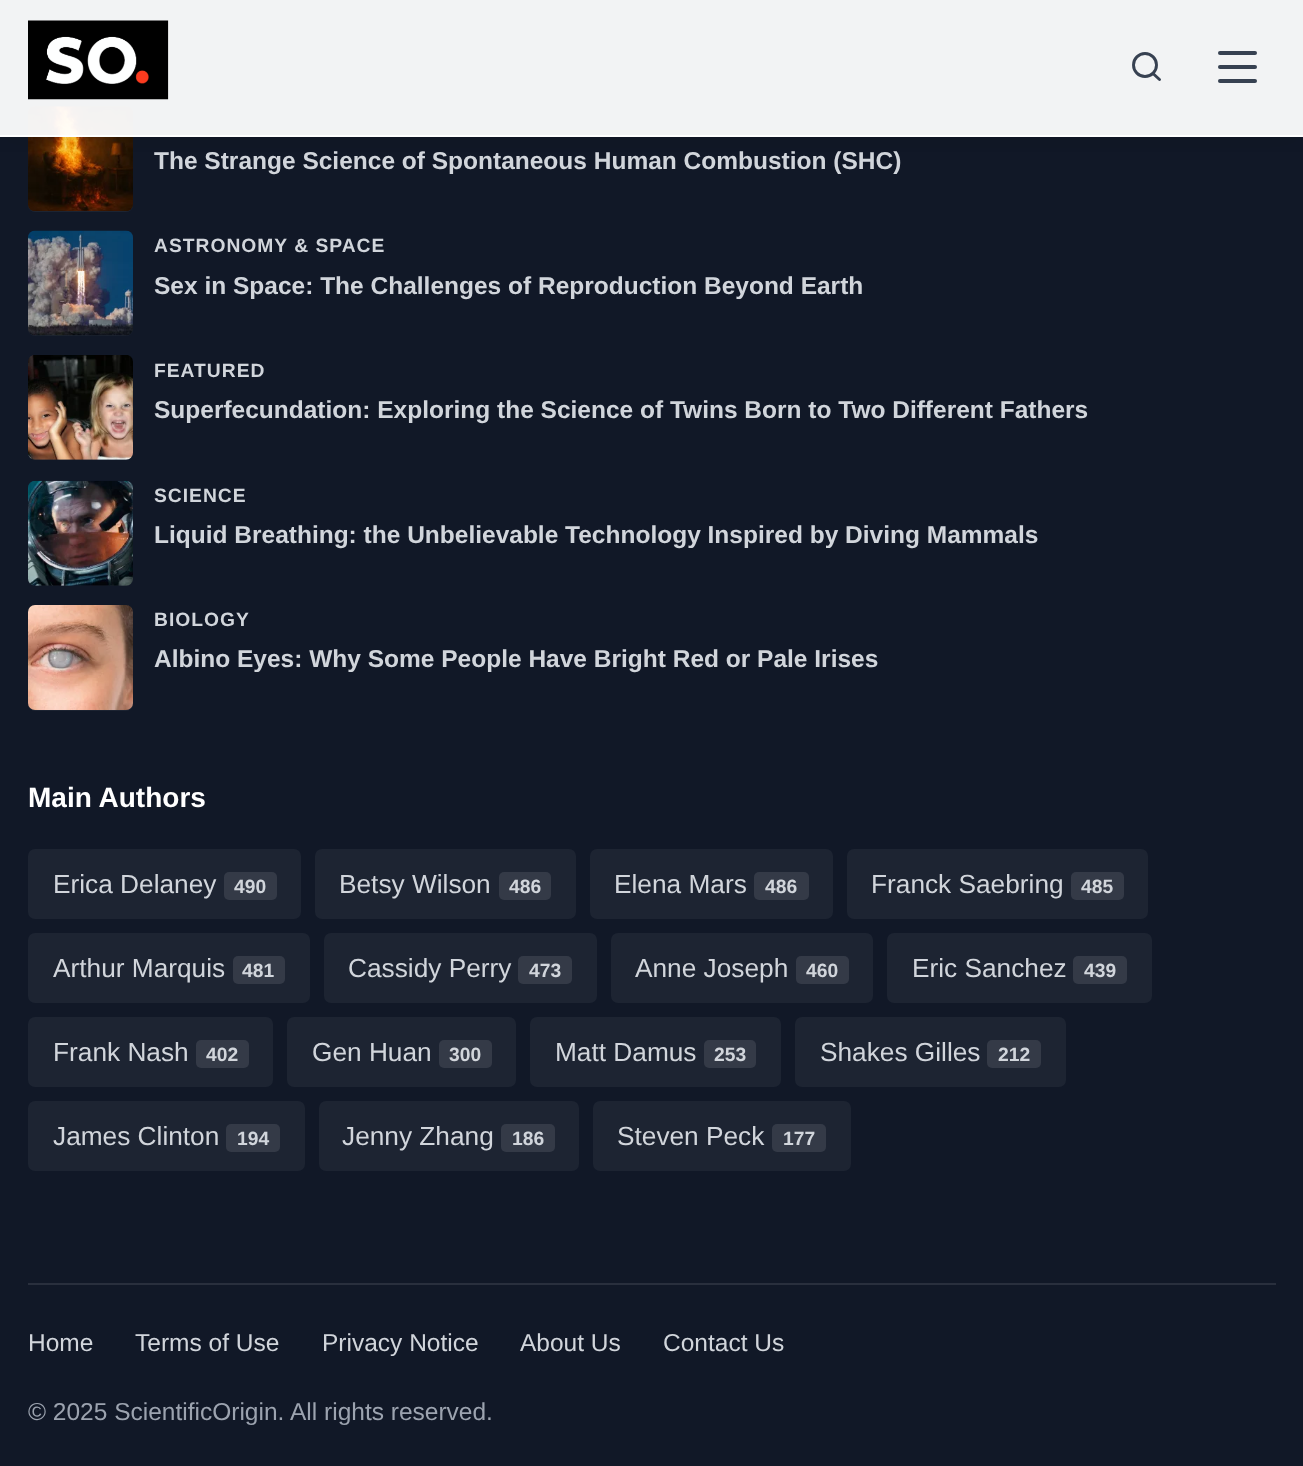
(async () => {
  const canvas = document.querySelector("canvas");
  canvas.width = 1303;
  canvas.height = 1466;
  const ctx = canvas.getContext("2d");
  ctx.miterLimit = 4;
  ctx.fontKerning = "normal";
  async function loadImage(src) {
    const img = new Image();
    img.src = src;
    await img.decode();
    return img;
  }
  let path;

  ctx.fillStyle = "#111827";
  ctx.fillRect(0, 0, 1303, 1466);
  ctx.fillStyle = "#1d2432";
  ctx.beginPath();
  ctx.roundRect(28, 107, 105, 105, 7);
  ctx.fill();
  ctx.drawImage(await loadImage("img/2.png"), 28, 106, 105, 105);
  ctx.save();
  ctx.beginPath();
  ctx.rect(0, 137, 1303, 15);
  ctx.clip();
  ctx.fillStyle = "rgba(0, 0, 0, 0.08)";
  ctx.filter = "blur(17.5px)";
  ctx.beginPath();
  ctx.rect(0, 4, 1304, 136);
  ctx.fill();
  ctx.filter = "none";
  ctx.restore();
  ctx.fillStyle = "rgba(255, 255, 255, 0.95)";
  ctx.fillRect(0, 0, 1303, 135);
  ctx.drawImage(await loadImage("img/1.png"), 28, 20, 141, 80);
  ctx.beginPath();
  ctx.arc(1145, 65, 11.5, 0, Math.PI * 2);
  ctx.strokeStyle = "#374151";
  ctx.lineWidth = 2.9;
  ctx.stroke();
  path = new Path2D("M1159.5 79.5L1153 73.5");
  ctx.lineCap = "round";
  ctx.lineJoin = "round";
  ctx.stroke(path);
  ctx.fillStyle = "#374151";
  ctx.beginPath();
  ctx.roundRect(1218, 51, 39, 4, 2);
  ctx.fill();
  ctx.beginPath();
  ctx.roundRect(1218, 65, 39, 4, 2);
  ctx.fill();
  ctx.beginPath();
  ctx.roundRect(1218, 79, 39, 4, 2);
  ctx.fill();
  ctx.fillStyle = "#ffffff";
  ctx.fillRect(0, 135, 1303, 2);
  ctx.fillStyle = "#292f3d";
  ctx.fillRect(28, 1283, 1248, 2);
  ctx.fillStyle = "#1d2432";
  ctx.beginPath();
  ctx.roundRect(28, 231, 105, 105, 7);
  ctx.fill();
  ctx.drawImage(await loadImage("img/3.png"), 28, 230, 105, 106);
  ctx.beginPath();
  ctx.roundRect(28, 355, 105, 105, 7);
  ctx.fill();
  ctx.drawImage(await loadImage("img/4.png"), 28, 355, 105, 105);
  ctx.beginPath();
  ctx.roundRect(28, 481, 105, 105, 7);
  ctx.fill();
  ctx.drawImage(await loadImage("img/5.png"), 28, 480, 105, 106);
  ctx.beginPath();
  ctx.roundRect(28, 606, 105, 105, 7);
  ctx.fill();
  ctx.drawImage(await loadImage("img/6.png"), 28, 605, 105, 105);
  ctx.beginPath();
  ctx.roundRect(28, 849, 273, 70, 7);
  ctx.fill();
  ctx.fillStyle = "#343a47";
  ctx.beginPath();
  ctx.roundRect(224, 872, 53, 28, 5);
  ctx.fill();
  ctx.fillStyle = "#1d2432";
  ctx.beginPath();
  ctx.roundRect(315, 849, 261, 70, 7);
  ctx.fill();
  ctx.fillStyle = "#343a47";
  ctx.beginPath();
  ctx.roundRect(499, 872, 52, 28, 5);
  ctx.fill();
  ctx.fillStyle = "#1d2432";
  ctx.beginPath();
  ctx.roundRect(590, 849, 243, 70, 7);
  ctx.fill();
  ctx.fillStyle = "#343a47";
  ctx.beginPath();
  ctx.roundRect(754, 872, 55, 28, 5);
  ctx.fill();
  ctx.fillStyle = "#1d2432";
  ctx.beginPath();
  ctx.roundRect(847, 849, 301, 70, 7);
  ctx.fill();
  ctx.fillStyle = "#343a47";
  ctx.beginPath();
  ctx.roundRect(1071, 872, 53, 28, 5);
  ctx.fill();
  ctx.fillStyle = "#1d2432";
  ctx.beginPath();
  ctx.roundRect(28, 933, 282, 70, 7);
  ctx.fill();
  ctx.fillStyle = "#343a47";
  ctx.beginPath();
  ctx.roundRect(233, 956, 52, 28, 5);
  ctx.fill();
  ctx.fillStyle = "#1d2432";
  ctx.beginPath();
  ctx.roundRect(324, 933, 273, 70, 7);
  ctx.fill();
  ctx.fillStyle = "#343a47";
  ctx.beginPath();
  ctx.roundRect(518, 956, 54, 28, 5);
  ctx.fill();
  ctx.fillStyle = "#1d2432";
  ctx.beginPath();
  ctx.roundRect(611, 933, 262, 70, 7);
  ctx.fill();
  ctx.fillStyle = "#343a47";
  ctx.beginPath();
  ctx.roundRect(796, 956, 53, 28, 5);
  ctx.fill();
  ctx.fillStyle = "#1d2432";
  ctx.beginPath();
  ctx.roundRect(887, 933, 265, 70, 7);
  ctx.fill();
  ctx.fillStyle = "#343a47";
  ctx.beginPath();
  ctx.roundRect(1073, 956, 54, 28, 5);
  ctx.fill();
  ctx.fillStyle = "#1d2432";
  ctx.beginPath();
  ctx.roundRect(28, 1017, 245, 70, 7);
  ctx.fill();
  ctx.fillStyle = "#343a47";
  ctx.beginPath();
  ctx.roundRect(196, 1040, 53, 28, 5);
  ctx.fill();
  ctx.fillStyle = "#1d2432";
  ctx.beginPath();
  ctx.roundRect(287, 1017, 229, 70, 7);
  ctx.fill();
  ctx.fillStyle = "#343a47";
  ctx.beginPath();
  ctx.roundRect(439, 1040, 53, 28, 5);
  ctx.fill();
  ctx.fillStyle = "#1d2432";
  ctx.beginPath();
  ctx.roundRect(530, 1017, 251, 70, 7);
  ctx.fill();
  ctx.fillStyle = "#343a47";
  ctx.beginPath();
  ctx.roundRect(704, 1040, 52, 28, 5);
  ctx.fill();
  ctx.fillStyle = "#1d2432";
  ctx.beginPath();
  ctx.roundRect(795, 1017, 271, 70, 7);
  ctx.fill();
  ctx.fillStyle = "#343a47";
  ctx.beginPath();
  ctx.roundRect(987, 1040, 54, 28, 5);
  ctx.fill();
  ctx.fillStyle = "#1d2432";
  ctx.beginPath();
  ctx.roundRect(28, 1101, 277, 70, 7);
  ctx.fill();
  ctx.fillStyle = "#343a47";
  ctx.beginPath();
  ctx.roundRect(226, 1124, 54, 28, 5);
  ctx.fill();
  ctx.fillStyle = "#1d2432";
  ctx.beginPath();
  ctx.roundRect(319, 1101, 260, 70, 7);
  ctx.fill();
  ctx.fillStyle = "#343a47";
  ctx.beginPath();
  ctx.roundRect(501, 1124, 54, 28, 5);
  ctx.fill();
  ctx.fillStyle = "#1d2432";
  ctx.beginPath();
  ctx.roundRect(593, 1101, 258, 70, 7);
  ctx.fill();
  ctx.fillStyle = "#343a47";
  ctx.beginPath();
  ctx.roundRect(772, 1124, 54, 28, 5);
  ctx.fill();
  ctx.font = "bold 24.5px Liberation Sans";
  ctx.fillStyle = "#d1d5db";
  ctx.fillText("The Strange Science of Spontaneous Human Combustion (SHC)", 154, 169);
  ctx.letterSpacing = "1px";
  ctx.font = "bold 19.25px Liberation Sans";
  ctx.fillText("ASTRONOMY & SPACE", 154, 252);
  ctx.letterSpacing = "0px";
  ctx.font = "bold 24.5px Liberation Sans";
  ctx.fillText("Sex in Space: The Challenges of Reproduction Beyond Earth", 154, 294);
  ctx.letterSpacing = "1px";
  ctx.font = "bold 19.25px Liberation Sans";
  ctx.fillText("FEATURED", 154, 377);
  ctx.letterSpacing = "0px";
  ctx.font = "bold 24.5px Liberation Sans";
  ctx.fillText("Superfecundation: Exploring the Science of Twins Born to Two Different Fathers", 154, 418);
  ctx.letterSpacing = "1px";
  ctx.font = "bold 19.25px Liberation Sans";
  ctx.fillText("SCIENCE", 154, 502);
  ctx.letterSpacing = "0px";
  ctx.font = "bold 24.5px Liberation Sans";
  ctx.fillText("Liquid Breathing: the Unbelievable Technology Inspired by Diving Mammals", 154, 543);
  ctx.letterSpacing = "1px";
  ctx.font = "bold 19.25px Liberation Sans";
  ctx.fillText("BIOLOGY", 154, 626);
  ctx.letterSpacing = "0px";
  ctx.font = "bold 24.5px Liberation Sans";
  ctx.fillText("Albino Eyes: Why Some People Have Bright Red or Pale Irises", 154, 667);
  ctx.font = "bold 28px Liberation Sans";
  ctx.fillStyle = "#ffffff";
  ctx.fillText("Main Authors", 28, 807);
  ctx.font = "26.25px Liberation Sans";
  ctx.fillStyle = "#d1d5db";
  ctx.fillText("Erica Delaney", 53, 893);
  ctx.font = "bold 19.25px Liberation Sans";
  ctx.fillText("490", 234, 893);
  ctx.font = "26.25px Liberation Sans";
  ctx.fillText("Betsy Wilson", 339, 893);
  ctx.font = "bold 19.25px Liberation Sans";
  ctx.fillText("486", 509, 893);
  ctx.font = "26.25px Liberation Sans";
  ctx.fillText("Elena Mars", 614, 893);
  ctx.font = "bold 19.25px Liberation Sans";
  ctx.fillText("486", 765, 893);
  ctx.font = "26.25px Liberation Sans";
  ctx.fillText("Franck Saebring", 871, 893);
  ctx.font = "bold 19.25px Liberation Sans";
  ctx.fillText("485", 1081, 893);
  ctx.font = "26.25px Liberation Sans";
  ctx.fillText("Arthur Marquis", 53, 977);
  ctx.font = "bold 19.25px Liberation Sans";
  ctx.fillText("481", 242, 977);
  ctx.font = "26.25px Liberation Sans";
  ctx.fillText("Cassidy Perry", 348, 977);
  ctx.font = "bold 19.25px Liberation Sans";
  ctx.fillText("473", 529, 977);
  ctx.font = "26.25px Liberation Sans";
  ctx.fillText("Anne Joseph", 635, 977);
  ctx.font = "bold 19.25px Liberation Sans";
  ctx.fillText("460", 806, 977);
  ctx.font = "26.25px Liberation Sans";
  ctx.fillText("Eric Sanchez", 912, 977);
  ctx.font = "bold 19.25px Liberation Sans";
  ctx.fillText("439", 1084, 977);
  ctx.font = "26.25px Liberation Sans";
  ctx.fillText("Frank Nash", 53, 1061);
  ctx.font = "bold 19.25px Liberation Sans";
  ctx.fillText("402", 206, 1061);
  ctx.font = "26.25px Liberation Sans";
  ctx.fillText("Gen Huan", 312, 1061);
  ctx.font = "bold 19.25px Liberation Sans";
  ctx.fillText("300", 449, 1061);
  ctx.font = "26.25px Liberation Sans";
  ctx.fillText("Matt Damus", 555, 1061);
  ctx.font = "bold 19.25px Liberation Sans";
  ctx.fillText("253", 714, 1061);
  ctx.font = "26.25px Liberation Sans";
  ctx.fillText("Shakes Gilles", 820, 1061);
  ctx.font = "bold 19.25px Liberation Sans";
  ctx.fillText("212", 998, 1061);
  ctx.font = "26.25px Liberation Sans";
  ctx.fillText("James Clinton", 53, 1145);
  ctx.font = "bold 19.25px Liberation Sans";
  ctx.fillText("194", 237, 1145);
  ctx.font = "26.25px Liberation Sans";
  ctx.fillText("Jenny Zhang", 342, 1145);
  ctx.font = "bold 19.25px Liberation Sans";
  ctx.fillText("186", 512, 1145);
  ctx.font = "26.25px Liberation Sans";
  ctx.fillText("Steven Peck", 617, 1145);
  ctx.font = "bold 19.25px Liberation Sans";
  ctx.fillText("177", 783, 1145);
  ctx.font = "24.5px Liberation Sans";
  for (const [text, x, y] of [
    ["Home", 28, 1351],
    ["Terms of Use", 135, 1351],
    ["Privacy Notice", 322, 1351],
    ["About Us", 520, 1351],
    ["Contact Us", 663, 1351],
  ]) {
    ctx.fillText(text, x, y);
  }
  ctx.fillStyle = "#9ca3af";
  ctx.fillText("© 2025 ScientificOrigin.", 28, 1420);
  ctx.fillText("All rights reserved.", 290, 1420);
})();
